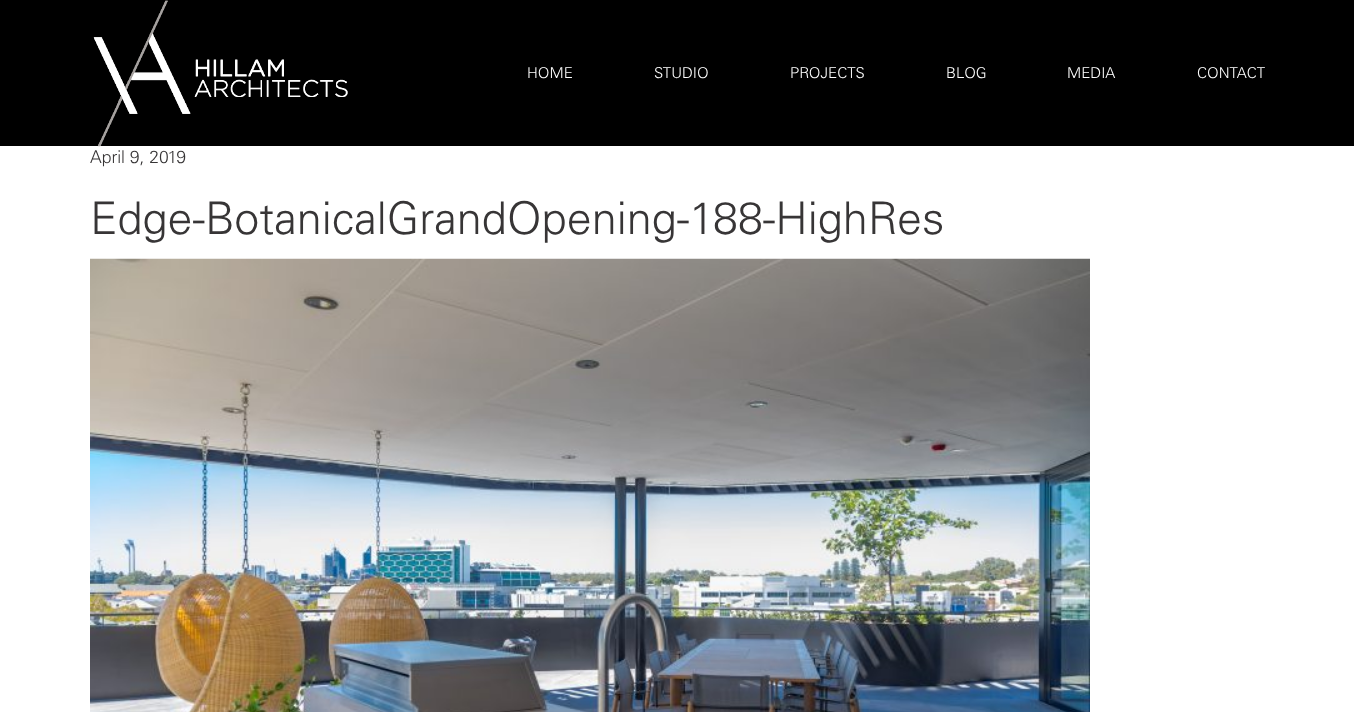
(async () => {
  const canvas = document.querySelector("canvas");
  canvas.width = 1354;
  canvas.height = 712;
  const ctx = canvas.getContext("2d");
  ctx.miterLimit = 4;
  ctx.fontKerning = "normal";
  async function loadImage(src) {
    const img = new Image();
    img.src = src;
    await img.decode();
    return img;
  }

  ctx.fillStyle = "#ffffff";
  ctx.fillRect(0, 0, 1354, 712);
  ctx.fillStyle = "#000000";
  ctx.fillRect(0, 0, 1354, 146);
  ctx.drawImage(await loadImage("img/1.png"), 93, 0, 255, 147);
  ctx.drawImage(await loadImage("img/2.png"), 93, 0, 255, 147);
  ctx.drawImage(await loadImage("img/3.png"), 90, 258, 1000, 454);
  ctx.font = "15px 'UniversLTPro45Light'";
  ctx.fillStyle = "#ffffff";
  for (const [text, x, y] of [
    ["HOME", 527, 78],
    ["STUDIO", 654, 78],
    ["PROJECTS", 790, 78],
    ["BLOG", 946, 78],
    ["MEDIA", 1067, 78],
    ["CONTACT", 1197, 78],
  ]) {
    ctx.fillText(text, x, y);
  }
  ctx.font = "17.5px 'UniversLTPro45Light'";
  ctx.fillStyle = "#373536";
  ctx.fillText("April 9, 2019", 90, 163);
  ctx.font = "45px 'UniversLTPro45Light'";
  ctx.fillText("Edge-BotanicalGrandOpening-188-HighRes", 90, 234);
})();
